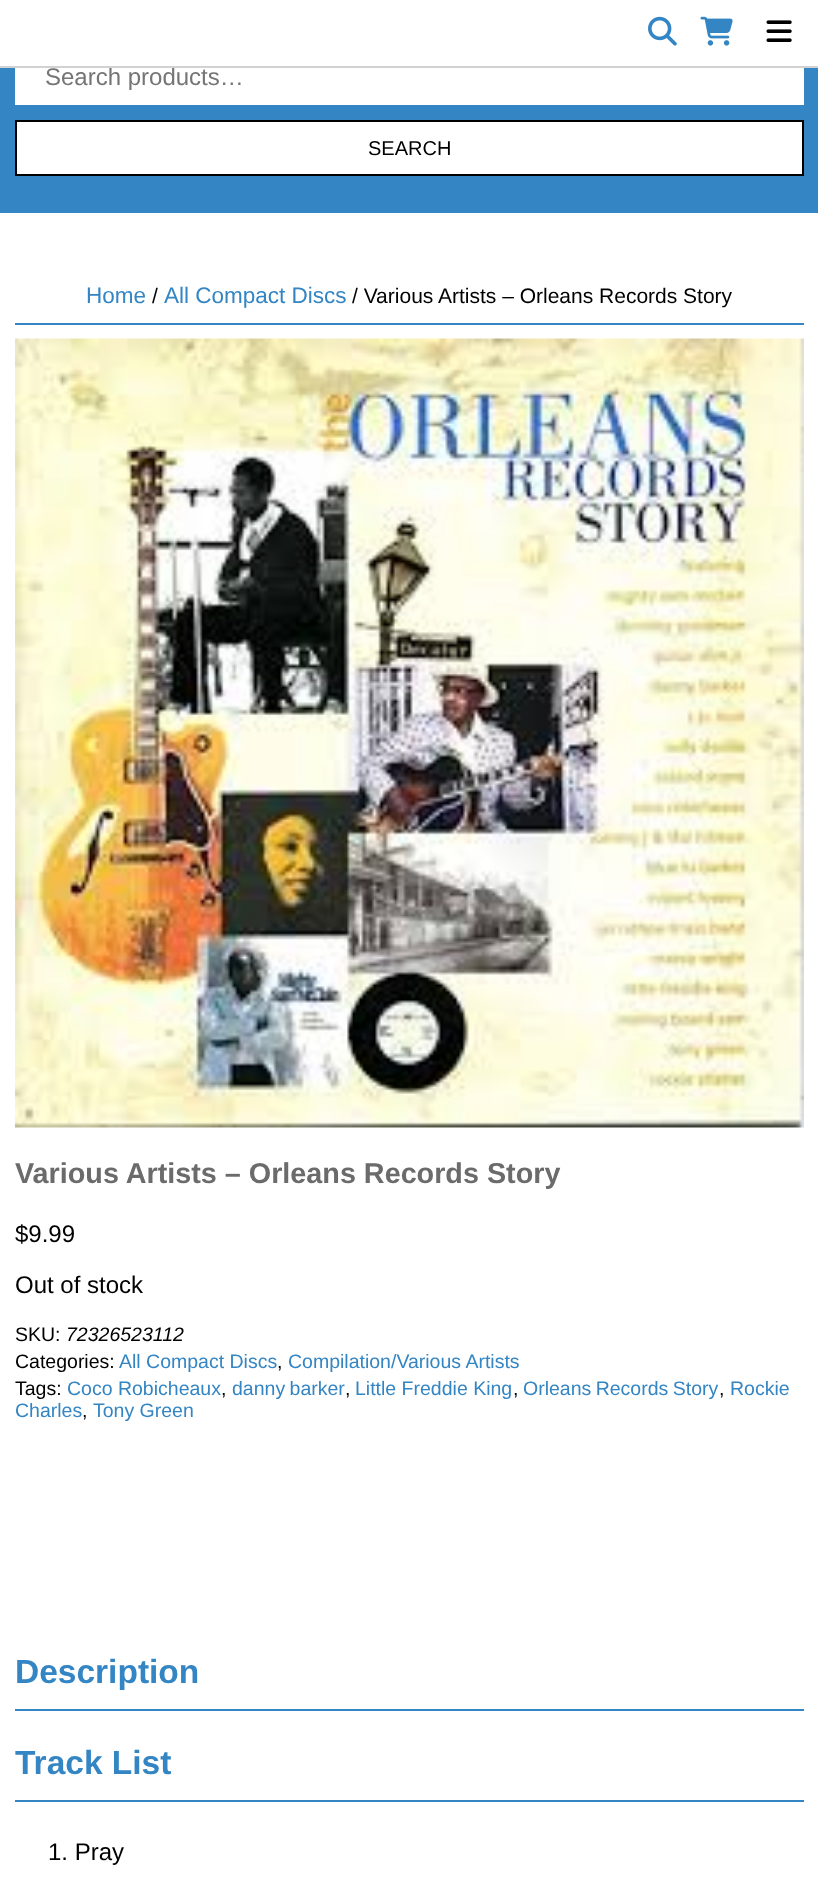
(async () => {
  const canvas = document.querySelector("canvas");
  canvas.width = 818;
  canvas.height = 1878;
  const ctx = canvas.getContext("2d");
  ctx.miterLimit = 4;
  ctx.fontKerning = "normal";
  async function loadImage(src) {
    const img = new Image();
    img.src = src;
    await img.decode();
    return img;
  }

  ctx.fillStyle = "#ffffff";
  ctx.fillRect(0, 0, 818, 1878);
  ctx.drawImage(await loadImage("img/1.png"), 648, 16, 29, 30);
  ctx.drawImage(await loadImage("img/2.png"), 700, 16, 33, 30);
  ctx.drawImage(await loadImage("img/3.png"), 766, 20, 26, 22);
  ctx.fillStyle = "#3385c3";
  ctx.fillRect(0, 68, 818, 145);
  ctx.fillStyle = "#ffffff";
  ctx.fillRect(15, 68, 789, 37);
  ctx.beginPath();
  ctx.rect(16, 121, 787, 54);
  ctx.fill();
  ctx.strokeStyle = "#000000";
  ctx.lineWidth = 2;
  ctx.stroke();
  ctx.fillStyle = "#3385c3";
  ctx.fillRect(15, 323, 789, 2);
  ctx.drawImage(await loadImage("img/4.png"), 15, 338, 789, 790);
  ctx.fillRect(15, 1709, 789, 2);
  ctx.fillRect(15, 1800, 789, 2);
  ctx.font = "24px Liberation Sans";
  ctx.fillStyle = "#757575";
  ctx.fillText("Search products…", 45, 85);
  ctx.fillStyle = "#d2d2d2";
  ctx.fillRect(0, 66, 818, 2);
  ctx.font = "20px Liberation Sans";
  ctx.fillStyle = "#000000";
  ctx.fillText("SEARCH", 368, 155);
  ctx.font = "22.5px Liberation Sans";
  ctx.fillStyle = "#3385c3";
  ctx.fillText("Home", 86, 303);
  ctx.font = "21px Liberation Sans";
  ctx.fillStyle = "#000000";
  ctx.fillText("/", 152, 303);
  ctx.font = "22.5px Liberation Sans";
  ctx.fillStyle = "#3385c3";
  ctx.fillText("All Compact Discs", 164, 303);
  ctx.font = "21px Liberation Sans";
  ctx.fillStyle = "#000000";
  ctx.fillText("/ Various Artists – Orleans Records Story", 352, 303);
  ctx.font = "bold 28.75px Liberation Sans";
  ctx.fillStyle = "#6b6b6b";
  ctx.fillText("Various Artists – Orleans Records Story", 15, 1183);
  ctx.font = "24px Liberation Sans";
  ctx.fillStyle = "#000000";
  ctx.fillText("$9.99", 15, 1242);
  ctx.fillText("Out of stock", 15, 1293);
  ctx.font = "19.5px Liberation Sans";
  ctx.fillText("SKU:", 15, 1341);
  ctx.font = "italic 19.5px Liberation Sans";
  ctx.fillText("72326523112", 66, 1341);
  ctx.font = "19.5px Liberation Sans";
  ctx.fillText("Categories:", 15, 1368);
  ctx.fillStyle = "#3385c3";
  ctx.fillText("All Compact Discs", 119, 1368);
  ctx.fillStyle = "#000000";
  ctx.fillText(",", 277, 1368);
  ctx.fillStyle = "#3385c3";
  ctx.fillText("Compilation/Various Artists", 288, 1368);
  ctx.fillStyle = "#000000";
  ctx.fillText("Tags:", 15, 1395);
  ctx.fillStyle = "#3385c3";
  ctx.fillText("Coco Robicheaux", 67, 1395);
  ctx.fillStyle = "#000000";
  ctx.fillText(",", 221, 1395);
  ctx.wordSpacing = "-1px";
  ctx.fillStyle = "#3385c3";
  ctx.fillText("danny barker", 232, 1395);
  ctx.wordSpacing = "0px";
  ctx.fillStyle = "#000000";
  ctx.fillText(",", 345, 1395);
  ctx.fillStyle = "#3385c3";
  ctx.fillText("Little Freddie King", 355, 1395);
  ctx.fillStyle = "#000000";
  ctx.fillText(",", 513, 1395);
  ctx.wordSpacing = "-1px";
  ctx.fillStyle = "#3385c3";
  ctx.fillText("Orleans Records Story", 523, 1395);
  ctx.wordSpacing = "0px";
  ctx.fillStyle = "#000000";
  ctx.fillText(",", 719, 1395);
  ctx.fillStyle = "#3385c3";
  ctx.fillText("Rockie", 730, 1395);
  ctx.fillText("Charles", 15, 1417);
  ctx.fillStyle = "#000000";
  ctx.fillText(",", 82, 1417);
  ctx.fillStyle = "#3385c3";
  ctx.fillText("Tony Green", 93, 1417);
  ctx.font = "bold 33.5px Liberation Sans";
  ctx.fillText("Description", 15, 1683);
  ctx.fillText("Track List", 15, 1774);
  ctx.font = "24px Liberation Sans";
  ctx.fillStyle = "#000000";
  ctx.fillText("1. Pray", 48, 1860);
})();
